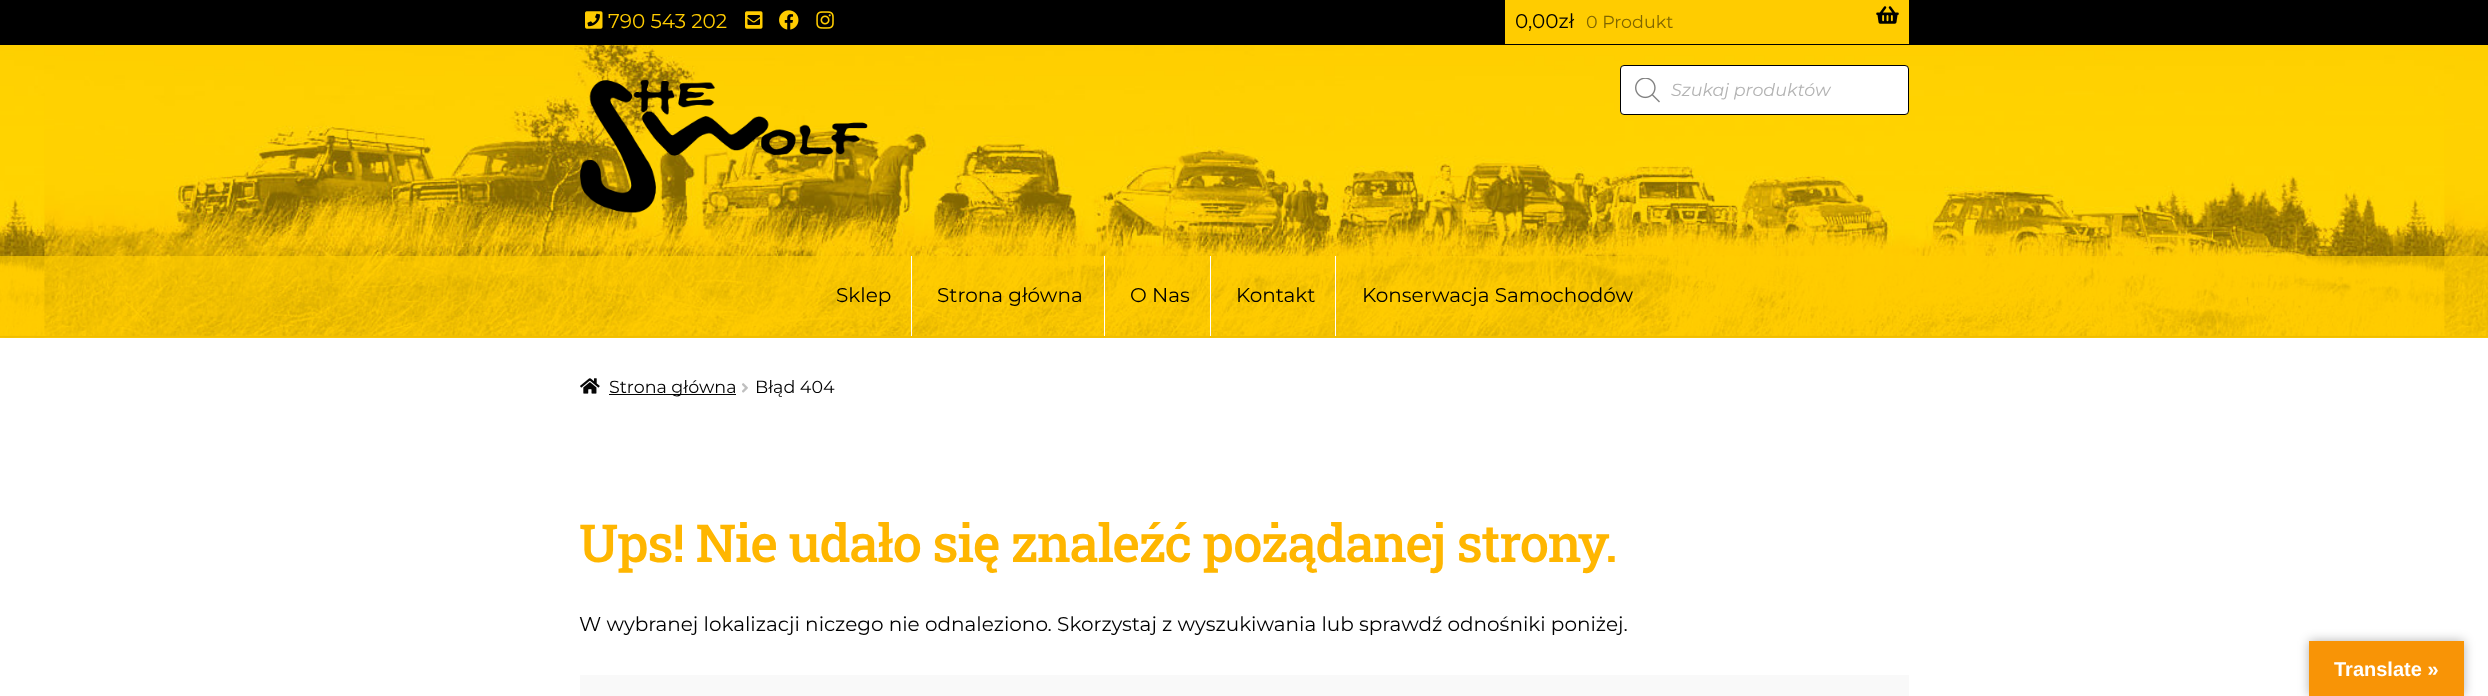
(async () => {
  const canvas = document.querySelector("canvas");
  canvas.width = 2488;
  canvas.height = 696;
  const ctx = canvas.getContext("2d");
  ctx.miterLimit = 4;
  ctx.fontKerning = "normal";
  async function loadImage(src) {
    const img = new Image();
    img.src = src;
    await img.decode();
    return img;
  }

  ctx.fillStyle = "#ffffff";
  ctx.fillRect(0, 0, 2488, 696);
  ctx.fillStyle = "#000000";
  ctx.fillRect(0, 0, 2488, 45);
  ctx.drawImage(await loadImage("img/1.png"), 585, 11, 18, 18);
  ctx.drawImage(await loadImage("img/2.png"), 745, 11, 18, 18);
  ctx.drawImage(await loadImage("img/3.png"), 779, 10, 20, 20);
  ctx.drawImage(await loadImage("img/4.png"), 816, 11, 18, 18);
  ctx.fillStyle = "#ffcc00";
  ctx.fillRect(1505, 0, 404, 44);
  ctx.drawImage(await loadImage("img/5.png"), 1876, 6, 23, 18);
  ctx.fillRect(0, 337, 2488, 1);
  ctx.drawImage(await loadImage("img/6.png"), 0, 45, 2488, 293);
  ctx.fillStyle = "#f0bd00";
  ctx.fillRect(0, 336, 2444, 1);
  ctx.drawImage(await loadImage("img/7.png"), 580, 79, 288, 134);
  ctx.fillStyle = "#ffffff";
  ctx.beginPath();
  ctx.roundRect(1620.5, 65.5, 288, 49, 3.5);
  ctx.fill();
  ctx.strokeStyle = "#000000";
  ctx.stroke();
  ctx.drawImage(await loadImage("img/8.png"), 1635, 78, 25, 25);
  for (const [x, y, w, h, color] of [
    [0, 256, 2488, 80, "rgba(255, 204, 0, 0.7)"],
    [911, 256, 1, 80, "#ffffff"],
    [1104, 256, 1, 80, "#ffffff"],
    [1210, 256, 1, 80, "#ffffff"],
    [1335, 256, 1, 80, "#ffffff"],
  ]) {
    ctx.fillStyle = color;
    ctx.fillRect(x, y, w, h);
  }
  ctx.drawImage(await loadImage("img/9.png"), 580, 378, 20, 16);
  ctx.fillStyle = "#050505";
  ctx.fillRect(609, 394, 127, 1);
  ctx.drawImage(await loadImage("img/10.png"), 742, 383, 6, 10);
  ctx.fillStyle = "#f9f9f9";
  ctx.fillRect(580, 675, 1329, 21);
  ctx.fillStyle = "rgba(0, 0, 0, 0.3)";
  ctx.filter = "blur(5.5px)";
  ctx.beginPath();
  ctx.rect(2309, 641, 155, 55);
  ctx.fill();
  ctx.filter = "none";
  ctx.fillStyle = "#f89406";
  ctx.fillRect(2309, 641, 155, 55);
  ctx.font = "20px Montserrat";
  ctx.fillStyle = "#ffcc00";
  ctx.fillText("790 543 202", 608, 28);
  ctx.fillStyle = "#000000";
  ctx.fillText("0,00zł", 1515, 28);
  ctx.font = "17.5px Montserrat";
  ctx.fillStyle = "#806600";
  ctx.fillText("0 Produkt", 1586, 28);
  ctx.font = "italic 17.5px Montserrat";
  ctx.fillStyle = "#b3b3b3";
  ctx.fillText("Szukaj produktów", 1671, 96);
  ctx.font = "20px Montserrat";
  ctx.fillStyle = "#000000";
  for (const [text, x, y] of [
    ["Sklep", 836, 302],
    ["Strona główna", 937, 302],
    ["O Nas", 1130, 302],
    ["Kontakt", 1236, 302],
    ["Konserwacja Samochodów", 1362, 302],
  ]) {
    ctx.fillText(text, x, y);
  }
  ctx.font = "17.5px Montserrat";
  ctx.fillText("Strona główna", 609, 393);
  ctx.fillText("Błąd 404", 755, 393);
  ctx.letterSpacing = "-1.25px";
  ctx.font = "500 52.4px Roboto Slab";
  ctx.fillStyle = "#ffb600";
  ctx.fillText("Ups! Nie udało się znaleźć pożądanej strony.", 579, 562);
  ctx.letterSpacing = "0px";
  ctx.font = "20px Montserrat";
  ctx.fillStyle = "#000000";
  ctx.fillText("W wybranej lokalizacji niczego nie odnaleziono. Skorzystaj z wyszukiwania lub sprawdź odnośniki poniżej.", 579, 631);
  ctx.font = "bold 20px Liberation Sans";
  ctx.fillStyle = "#ffffff";
  ctx.fillText("Translate »", 2334, 676);
})();
